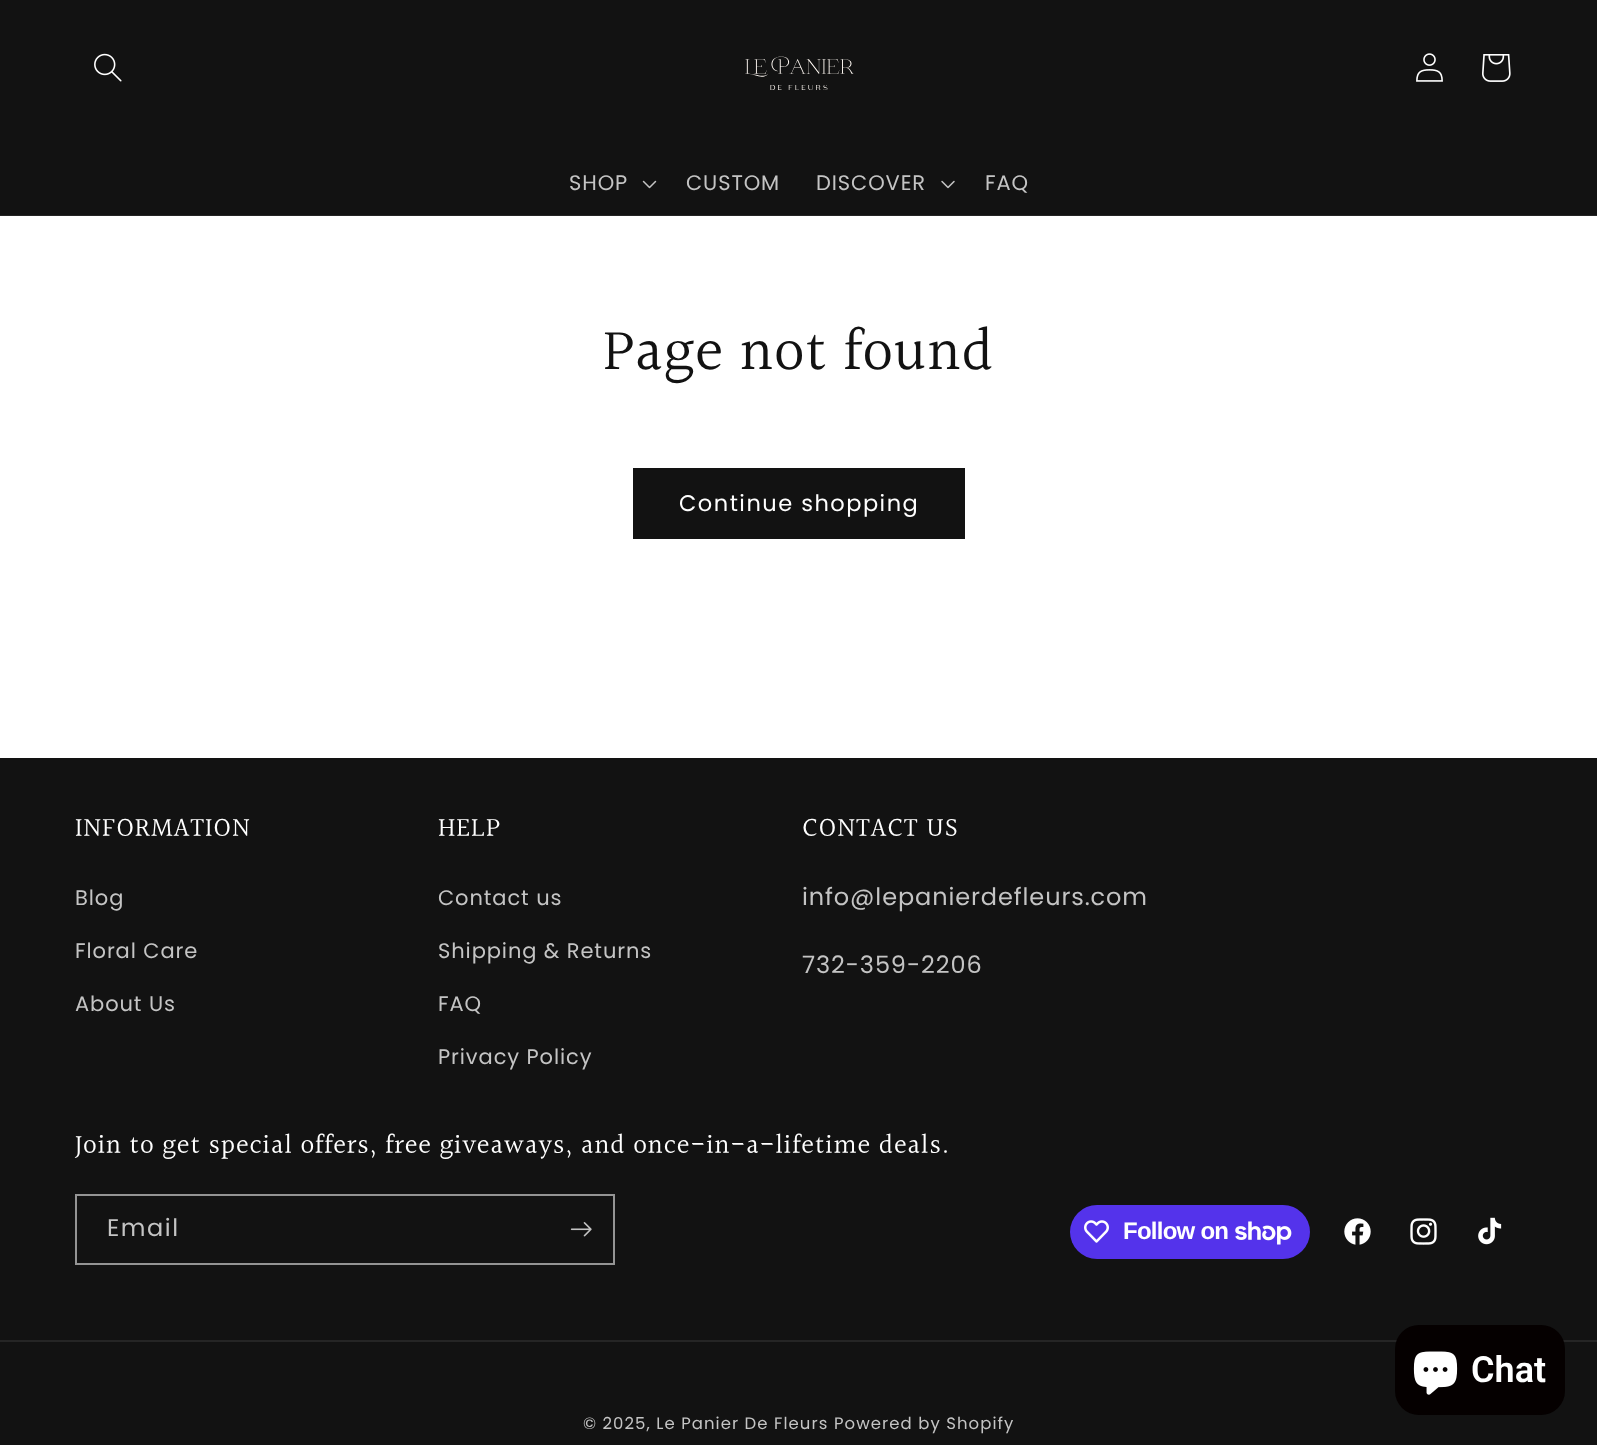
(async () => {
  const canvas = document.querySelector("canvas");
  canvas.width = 1597;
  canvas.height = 1445;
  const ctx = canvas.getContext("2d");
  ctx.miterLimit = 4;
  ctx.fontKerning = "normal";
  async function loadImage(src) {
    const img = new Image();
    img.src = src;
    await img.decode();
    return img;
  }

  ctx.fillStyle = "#ffffff";
  ctx.fillRect(0, 0, 1597, 1445);
  ctx.fillStyle = "#121212";
  ctx.fillRect(0, 0, 1597, 216);
  ctx.fillStyle = "rgba(255, 255, 255, 0.08)";
  ctx.fillRect(0, 215, 1597, 1);
  ctx.drawImage(await loadImage("img/1.png"), 94, 53, 28, 29);
  ctx.drawImage(await loadImage("img/2.png"), 745, 56, 109, 34);
  ctx.drawImage(await loadImage("img/3.png"), 1416, 53, 27, 29);
  ctx.drawImage(await loadImage("img/4.png"), 1482, 54, 29, 28);
  ctx.drawImage(await loadImage("img/5.png"), 642, 180, 15, 9);
  ctx.drawImage(await loadImage("img/6.png"), 941, 180, 14, 9);
  ctx.fillStyle = "#121212";
  ctx.fillRect(633, 468, 332, 71);
  ctx.fillRect(0, 758, 1597, 687);
  ctx.strokeStyle = "#949494";
  ctx.lineWidth = 2;
  ctx.strokeRect(76, 1195, 538, 69);
  ctx.drawImage(await loadImage("img/7.png"), 570, 1222, 22, 15);
  ctx.fillStyle = "#5433eb";
  ctx.beginPath();
  ctx.roundRect(1070, 1205, 240, 54, 27);
  ctx.fill();
  ctx.drawImage(await loadImage("img/8.png"), 1084, 1220, 25, 23);
  ctx.drawImage(await loadImage("img/9.png"), 1235, 1221, 57, 24);
  ctx.drawImage(await loadImage("img/10.png"), 1344, 1218, 27, 27);
  ctx.drawImage(await loadImage("img/11.png"), 1410, 1218, 27, 27);
  ctx.drawImage(await loadImage("img/12.png"), 1478, 1217, 24, 28);
  ctx.fillStyle = "#252525";
  ctx.fillRect(0, 1340, 1597, 2);
  ctx.fillStyle = "#050000";
  ctx.beginPath();
  ctx.roundRect(1395, 1325, 170, 90, 24);
  ctx.fill();
  ctx.drawImage(await loadImage("img/13.png"), 1413, 1351, 45, 44);
  ctx.letterSpacing = "0.9px";
  ctx.font = "21px Poppins";
  ctx.fillStyle = "#c4c4c4";
  for (const [text, x, y] of [
    ["SHOP", 569, 190],
    ["CUSTOM", 686, 190],
    ["DISCOVER", 816, 190],
    ["FAQ", 985, 190],
  ]) {
    ctx.fillText(text, x, y);
  }
  ctx.font = "60px Halant";
  ctx.fillStyle = "#121212";
  ctx.fillText("Page not found", 603, 372);
  ctx.letterSpacing = "1.5px";
  ctx.font = "22.5px Poppins";
  ctx.fillStyle = "#ffffff";
  ctx.fillText("Continue shopping", 679, 511);
  ctx.letterSpacing = "0.9px";
  ctx.font = "27px Halant";
  ctx.fillText("INFORMATION", 75, 837);
  ctx.font = "21px Poppins";
  ctx.fillStyle = "#c4c4c4";
  for (const [text, x, y] of [
    ["Blog", 75, 905],
    ["Floral Care", 75, 958],
    ["About Us", 75, 1011],
  ]) {
    ctx.fillText(text, x, y);
  }
  ctx.font = "27px Halant";
  ctx.fillStyle = "#ffffff";
  ctx.fillText("HELP", 438, 837);
  ctx.font = "21px Poppins";
  ctx.fillStyle = "#c4c4c4";
  for (const [text, x, y] of [
    ["Contact us", 438, 905],
    ["Shipping & Returns", 438, 958],
    ["FAQ", 438, 1011],
    ["Privacy Policy", 438, 1064],
  ]) {
    ctx.fillText(text, x, y);
  }
  ctx.font = "27px Halant";
  ctx.fillStyle = "#ffffff";
  ctx.fillText("CONTACT US", 802, 837);
  ctx.font = "24px Poppins";
  ctx.fillStyle = "#c4c4c4";
  ctx.fillText("info@lepanierdefleurs.com", 802, 905);
  ctx.fillText("732-359-2206", 802, 973);
  ctx.font = "27px Halant";
  ctx.fillStyle = "#ffffff";
  ctx.fillText("Join to get special offers, free giveaways, and once-in-a-lifetime deals.", 75, 1154);
  ctx.letterSpacing = "1.5px";
  ctx.font = "24px Poppins";
  ctx.fillStyle = "#c4c4c4";
  ctx.fillText("Email", 107, 1236);
  ctx.letterSpacing = "-0.75px";
  ctx.font = "bold 24px Liberation Sans";
  ctx.fillStyle = "#ffffff";
  ctx.fillText("Follow on", 1123, 1239);
  ctx.letterSpacing = "1.05px";
  ctx.font = "16.5px Poppins";
  ctx.fillStyle = "#c4c4c4";
  ctx.fillText("© 2025, Le Panier De Fleurs", 583, 1429);
  ctx.fillText("Powered by Shopify", 834, 1429);
  ctx.letterSpacing = "0px";
  ctx.font = "600 36px Roboto";
  ctx.fillStyle = "#ffffff";
  ctx.fillText("Chat", 1471, 1382);
})();
